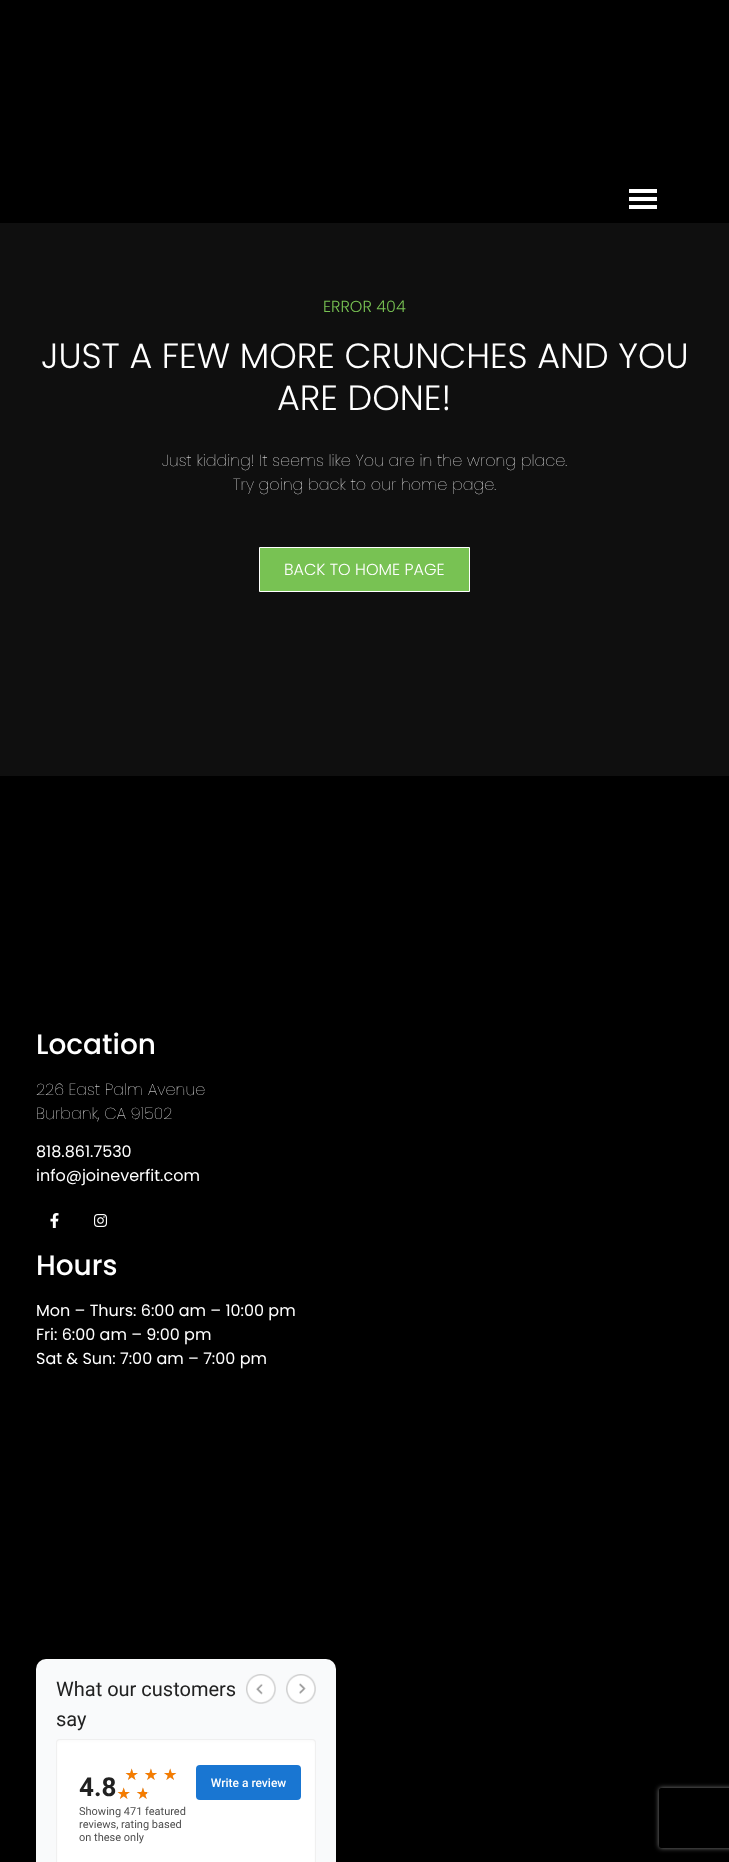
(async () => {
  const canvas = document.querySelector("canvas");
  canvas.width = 729;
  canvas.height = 1862;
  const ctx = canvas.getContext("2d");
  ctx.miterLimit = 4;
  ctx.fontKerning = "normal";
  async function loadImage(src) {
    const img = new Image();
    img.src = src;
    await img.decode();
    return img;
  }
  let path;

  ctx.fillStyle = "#0f0f0f";
  ctx.fillRect(0, 0, 729, 1862);
  ctx.fillStyle = "#000000";
  ctx.fillRect(0, 0, 729, 223);
  ctx.drawImage(await loadImage("img/1.png"), 629, 189, 28, 20);
  ctx.fillStyle = "#78c253";
  ctx.beginPath();
  ctx.rect(259.5, 547.5, 210, 44);
  ctx.fill();
  ctx.strokeStyle = "#ffffff";
  ctx.stroke();
  ctx.fillStyle = "#000000";
  ctx.fillRect(0, 776, 729, 1086);
  ctx.drawImage(await loadImage("img/2.png"), 50, 1213, 9, 15);
  ctx.drawImage(await loadImage("img/3.png"), 94, 1214, 14, 13);
  ctx.drawImage(await loadImage("img/4.png"), 36, 1659, 300, 203);
  ctx.save();
  path = new Path2D("M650 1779H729V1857H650ZM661 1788H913C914 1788 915 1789 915 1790V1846C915 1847 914 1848 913 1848H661C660 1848 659 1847 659 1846V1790C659 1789 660 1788 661 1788Z");
  ctx.clip(path, "evenodd");
  ctx.fillStyle = "#808080";
  ctx.filter = "blur(2.5px)";
  ctx.beginPath();
  ctx.roundRect(659, 1788, 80, 60, 2);
  ctx.fill();
  ctx.filter = "none";
  ctx.restore();
  ctx.font = "300 16px Poppins";
  ctx.fillStyle = "#78c253";
  ctx.fillText("ERROR 404", 323, 312);
  ctx.font = "300 35px Poppins";
  ctx.fillStyle = "#ffffff";
  ctx.fillText("JUST A FEW MORE CRUNCHES AND YOU", 41, 368);
  ctx.fillText("ARE DONE!", 277, 410);
  ctx.font = "200 16px Poppins";
  ctx.fillText("Just kidding! It seems like You are in the wrong place.", 162, 466);
  ctx.fillText("Try going back to our home page.", 233, 490);
  ctx.font = "300 16px Poppins";
  ctx.fillText("BACK TO HOME PAGE", 284, 575);
  ctx.font = "500 28px Poppins";
  ctx.fillText("Location", 36, 1054);
  ctx.font = "200 16px Poppins";
  ctx.fillText("226 East Palm Avenue", 36, 1095);
  ctx.fillText("Burbank, CA 91502", 36, 1119);
  ctx.font = "16px Poppins";
  ctx.fillText("818.861.7530", 36, 1157);
  ctx.fillText("info@joineverfit.com", 36, 1181);
  ctx.font = "500 28px Poppins";
  ctx.fillText("Hours", 36, 1275);
  ctx.font = "16px Poppins";
  for (const [text, x, y] of [
    ["Mon – Thurs: 6:00 am – 10:00 pm", 36, 1316],
    ["Fri: 6:00 am – 9:00 pm", 36, 1340],
    ["Sat & Sun: 7:00 am – 7:00 pm", 36, 1364],
  ]) {
    ctx.fillText(text, x, y);
  }
})();
